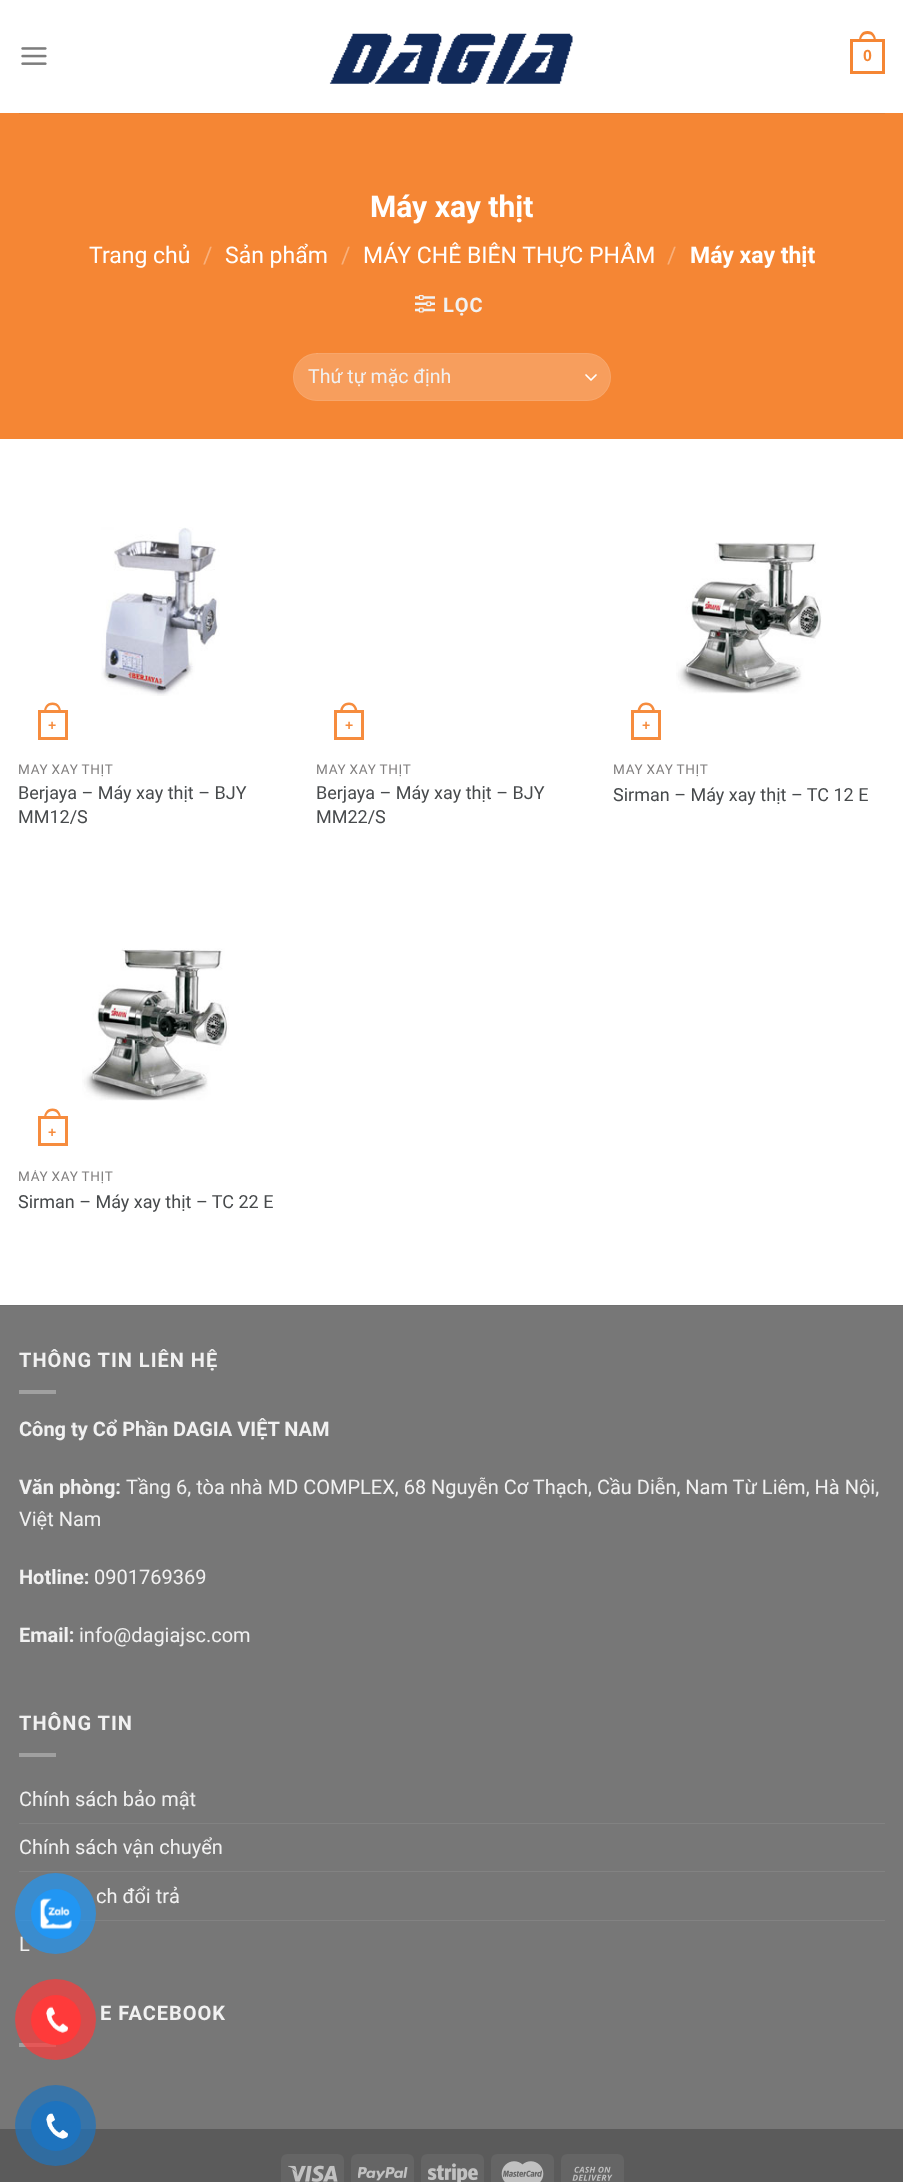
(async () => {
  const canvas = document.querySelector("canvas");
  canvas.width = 903;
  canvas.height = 2182;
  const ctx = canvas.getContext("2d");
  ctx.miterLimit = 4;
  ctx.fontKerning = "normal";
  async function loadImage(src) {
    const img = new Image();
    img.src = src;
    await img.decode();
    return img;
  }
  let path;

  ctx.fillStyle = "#ffffff";
  ctx.fillRect(0, 0, 903, 2182);
  ctx.drawImage(await loadImage("img/1.png"), 21, 47, 26, 18);
  ctx.drawImage(await loadImage("img/2.png"), 329, 33, 244, 51);
  ctx.strokeStyle = "#f58634";
  ctx.lineWidth = 3;
  ctx.strokeRect(851.5, 40.5, 32, 32);
  ctx.fillStyle = "#f58634";
  path = new Path2D("M867.5 31C873.5 31 876 36 876 41H859C859 36 861.5 31 867.5 31ZM867.5 34C872 34 874 37.5 874 41H861C861 37.5 863 34 867.5 34Z");
  ctx.fill(path, "evenodd");
  ctx.fillRect(0, 113, 903, 326);
  ctx.fillStyle = "#e48036";
  ctx.fillRect(19, 113, 866, 1);
  ctx.drawImage(await loadImage("img/3.png"), 415, 295, 20, 18);
  ctx.fillStyle = "#f79e5d";
  ctx.beginPath();
  ctx.roundRect(293, 353, 318, 48, 24);
  ctx.fill();
  path = new Path2D("M586 375L591 380L596 375");
  ctx.strokeStyle = "#ffffff";
  ctx.lineWidth = 1.7;
  ctx.lineCap = "round";
  ctx.lineJoin = "round";
  ctx.stroke(path);
  ctx.beginPath();
  ctx.roundRect(293.5, 353.5, 317, 47, 23.5);
  ctx.strokeStyle = "rgba(255, 255, 255, 0.09)";
  ctx.lineWidth = 1;
  ctx.lineJoin = "miter";
  ctx.stroke();
  ctx.drawImage(await loadImage("img/4.png"), 101, 527, 119, 169);
  ctx.strokeStyle = "#f68c3e";
  ctx.lineWidth = 3;
  ctx.strokeRect(39.5, 711.5, 27, 27);
  ctx.fillStyle = "#f68c3e";
  path = new Path2D("M52.5 702.5C58.5 702.5 61 707 61 712.5H44C44 707 46.5 702.5 52.5 702.5ZM52.5 705C57 705 59 708.5 59 712.5H46C46 708.5 48 705 52.5 705Z");
  ctx.fill(path, "evenodd");
  ctx.strokeRect(335.5, 711.5, 27, 27);
  path = new Path2D("M349 702.5C354.5 702.5 357.5 707 357.5 712.5H340C340 707 343 702.5 349 702.5ZM349 705C353 705 355 708.5 355 712.5H342.5C342.5 708.5 344.5 705 349 705Z");
  ctx.fill(path, "evenodd");
  ctx.drawImage(await loadImage("img/5.png"), 676, 542, 146, 152);
  ctx.strokeRect(632.5, 711.5, 27, 27);
  path = new Path2D("M646 702.5C652 702.5 655 707 655 712.5H637.5C637.5 707 640.5 702.5 646 702.5ZM646 705C650.5 705 652.5 708.5 652.5 712.5H640C640 708.5 642 705 646 705Z");
  ctx.fill(path, "evenodd");
  ctx.drawImage(await loadImage("img/6.png"), 82, 948, 147, 153);
  ctx.strokeRect(39.5, 1117.5, 27, 27);
  path = new Path2D("M52.5 1108.5C58.5 1108.5 61 1113.5 61 1118.5H44C44 1113.5 46.5 1108.5 52.5 1108.5ZM52.5 1111C57 1111 59 1115 59 1118.5H46C46 1115 48 1111 52.5 1111Z");
  ctx.fill(path, "evenodd");
  for (const [x, y, w, h, color] of [
    [0, 1306, 903, 823, "#777777"],
    [0, 1305, 903, 1, "#717171"],
    [19, 1390, 37, 4, "#a0a0a0"],
    [19, 1753, 37, 4, "#a0a0a0"],
    [19, 1823, 866, 1, "#828282"],
    [19, 1871, 866, 1, "#828282"],
    [19, 1920, 866, 1, "#828282"],
    [19, 2043, 37, 4, "#a0a0a0"],
    [0, 2129, 903, 53, "#5b5b5b"],
  ]) {
    ctx.fillStyle = color;
    ctx.fillRect(x, y, w, h);
  }
  ctx.fillStyle = "#656565";
  ctx.beginPath();
  ctx.roundRect(281, 2154, 63, 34, 6);
  ctx.fill();
  ctx.drawImage(await loadImage("img/7.png"), 288, 2165, 50, 17);
  ctx.beginPath();
  ctx.roundRect(351, 2154, 63, 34, 6);
  ctx.fill();
  ctx.drawImage(await loadImage("img/8.png"), 358, 2167, 50, 14);
  ctx.beginPath();
  ctx.roundRect(421, 2154, 63, 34, 6);
  ctx.fill();
  ctx.drawImage(await loadImage("img/9.png"), 428, 2163, 50, 19);
  ctx.beginPath();
  ctx.roundRect(491, 2154, 63, 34, 6);
  ctx.fill();
  ctx.drawImage(await loadImage("img/10.png"), 501, 2161, 43, 21);
  ctx.beginPath();
  ctx.roundRect(561, 2154, 63, 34, 6);
  ctx.fill();
  ctx.drawImage(await loadImage("img/11.png"), 572, 2166, 41, 15);
  ctx.fillStyle = "rgba(255, 58, 58, 0.7)";
  ctx.beginPath();
  ctx.arc(55.5, 2019.5, 40.5, 0, Math.PI * 2);
  ctx.fill();
  ctx.fillStyle = "#ff3a3a";
  ctx.beginPath();
  ctx.arc(56, 2020, 25, 0, Math.PI * 2);
  ctx.fill();
  ctx.drawImage(await loadImage("img/13.png"), 46, 2006, 22, 27);
  ctx.fillStyle = "rgba(30, 115, 190, 0.7)";
  ctx.beginPath();
  ctx.arc(55.5, 2125.5, 40.5, 0, Math.PI * 2);
  ctx.fill();
  ctx.fillStyle = "#1e73be";
  ctx.beginPath();
  ctx.arc(56, 2126, 25, 0, Math.PI * 2);
  ctx.fill();
  ctx.drawImage(await loadImage("img/14.png"), 46, 2113, 22, 26);
  ctx.font = "bold 16px Liberation Sans";
  ctx.fillStyle = "#f58634";
  ctx.fillText("0", 863, 61);
  ctx.font = "bold 30px Roboto";
  ctx.fillStyle = "#ffffff";
  ctx.fillText("Máy xay thịt", 370, 217);
  ctx.font = "23px Roboto";
  ctx.fillText("Trang chủ", 89, 263);
  ctx.fillStyle = "#f9b07b";
  ctx.fillText("/", 203, 263);
  ctx.fillStyle = "#ffffff";
  ctx.fillText("Sản phẩm", 225, 263);
  ctx.fillStyle = "#f9b07b";
  ctx.fillText("/", 341, 263);
  ctx.fillStyle = "#ffffff";
  ctx.fillText("MÁY CHẾ BIẾN THỰC PHẨM", 363, 263);
  ctx.fillStyle = "#f9b07b";
  ctx.fillText("/", 667, 263);
  ctx.font = "bold 23px Roboto";
  ctx.fillStyle = "#ffffff";
  ctx.fillText("Máy xay thịt", 690, 263);
  ctx.letterSpacing = "1px";
  ctx.font = "bold 20px Roboto";
  ctx.fillStyle = "#f1f1f1";
  ctx.fillText("LỌC", 443, 312);
  ctx.letterSpacing = "0px";
  ctx.font = "19.5px Roboto";
  ctx.fillText("Thứ tự mặc định", 308, 383);
  ctx.font = "bold 14px Liberation Sans";
  ctx.fillStyle = "#f68c3e";
  ctx.fillText("+", 48, 730);
  ctx.save();
  ctx.beginPath();
  ctx.rect(19, 764, 272, 16);
  ctx.clip();
  ctx.letterSpacing = "0.75px";
  ctx.wordSpacing = "-1px";
  ctx.font = "13.5px Roboto";
  ctx.fillStyle = "#817f7f";
  ctx.fillText("MÁY XAY THỊT", 18, 774);
  ctx.restore();
  ctx.font = "18px Roboto";
  ctx.fillStyle = "#474a4c";
  ctx.fillText("Berjaya – Máy xay thịt – BJY", 18, 799);
  ctx.fillText("MM12/S", 18, 823);
  ctx.font = "bold 14px Liberation Sans";
  ctx.fillStyle = "#f68c3e";
  ctx.fillText("+", 345, 730);
  ctx.save();
  ctx.beginPath();
  ctx.rect(315, 764, 274, 16);
  ctx.clip();
  ctx.letterSpacing = "0.75px";
  ctx.wordSpacing = "-1px";
  ctx.font = "13.5px Roboto";
  ctx.fillStyle = "#817f7f";
  ctx.fillText("MÁY XAY THỊT", 316, 774);
  ctx.restore();
  ctx.font = "18px Roboto";
  ctx.fillStyle = "#474a4c";
  ctx.fillText("Berjaya – Máy xay thịt – BJY", 316, 799);
  ctx.fillText("MM22/S", 316, 823);
  ctx.font = "bold 14px Liberation Sans";
  ctx.fillStyle = "#f68c3e";
  ctx.fillText("+", 642, 730);
  ctx.save();
  ctx.beginPath();
  ctx.rect(613, 764, 272, 16);
  ctx.clip();
  ctx.letterSpacing = "0.75px";
  ctx.wordSpacing = "-1px";
  ctx.font = "13.5px Roboto";
  ctx.fillStyle = "#817f7f";
  ctx.fillText("MÁY XAY THỊT", 613, 774);
  ctx.restore();
  ctx.font = "18px Roboto";
  ctx.fillStyle = "#474a4c";
  ctx.fillText("Sirman – Máy xay thịt – TC 12 E", 613, 801);
  ctx.font = "bold 14px Liberation Sans";
  ctx.fillStyle = "#f68c3e";
  ctx.fillText("+", 48, 1137);
  ctx.save();
  ctx.beginPath();
  ctx.rect(19, 1170, 272, 16);
  ctx.clip();
  ctx.letterSpacing = "0.75px";
  ctx.wordSpacing = "-1px";
  ctx.font = "13.5px Roboto";
  ctx.fillStyle = "#817f7f";
  ctx.fillText("MÁY XAY THỊT", 18, 1181);
  ctx.restore();
  ctx.font = "18px Roboto";
  ctx.fillStyle = "#474a4c";
  ctx.fillText("Sirman – Máy xay thịt – TC 22 E", 18, 1208);
  ctx.letterSpacing = "1px";
  ctx.font = "bold 20px Roboto";
  ctx.fillStyle = "#f1f1f1";
  ctx.fillText("THÔNG TIN LIÊN HỆ", 19, 1367);
  ctx.letterSpacing = "0px";
  ctx.fillText("Công ty Cổ Phần DAGIA VIỆT NAM", 19, 1436);
  ctx.fillText("Văn phòng:", 19, 1494);
  ctx.font = "20px Roboto";
  ctx.fillText("Tầng 6, tòa nhà MD COMPLEX, 68 Nguyễn Cơ Thạch, Cầu Diễn, Nam Từ Liêm, Hà Nội,", 126, 1494);
  ctx.fillText("Việt Nam", 19, 1526);
  ctx.font = "bold 20px Roboto";
  ctx.fillText("Hotline:", 19, 1584);
  ctx.font = "20px Roboto";
  ctx.fillText("0901769369", 94, 1584);
  ctx.font = "bold 20px Roboto";
  ctx.fillText("Email:", 19, 1642);
  ctx.font = "20px Roboto";
  ctx.fillText("info@dagiajsc.com", 79, 1642);
  ctx.letterSpacing = "1px";
  ctx.font = "bold 20px Roboto";
  ctx.fillText("THÔNG TIN", 19, 1730);
  ctx.letterSpacing = "0px";
  ctx.font = "20px Roboto";
  for (const [text, x, y] of [
    ["Chính sách bảo mật", 19, 1806],
    ["Chính sách vận chuyển", 19, 1854],
    ["ch đổi trả", 96, 1903],
    ["L", 19, 1951],
  ]) {
    ctx.fillText(text, x, y);
  }
  ctx.letterSpacing = "1px";
  ctx.font = "bold 20px Roboto";
  ctx.fillText("E FACEBOOK", 100, 2020);
  ctx.fillStyle = "rgba(33, 150, 243, 0.7)";
  ctx.beginPath();
  ctx.arc(55.5, 1913.5, 40.5, 0, Math.PI * 2);
  ctx.fill();
  ctx.fillStyle = "#2196f3";
  ctx.beginPath();
  ctx.arc(56, 1914, 25, 0, Math.PI * 2);
  ctx.fill();
  ctx.drawImage(await loadImage("img/12.png"), 39, 1898, 33, 32);
})();
